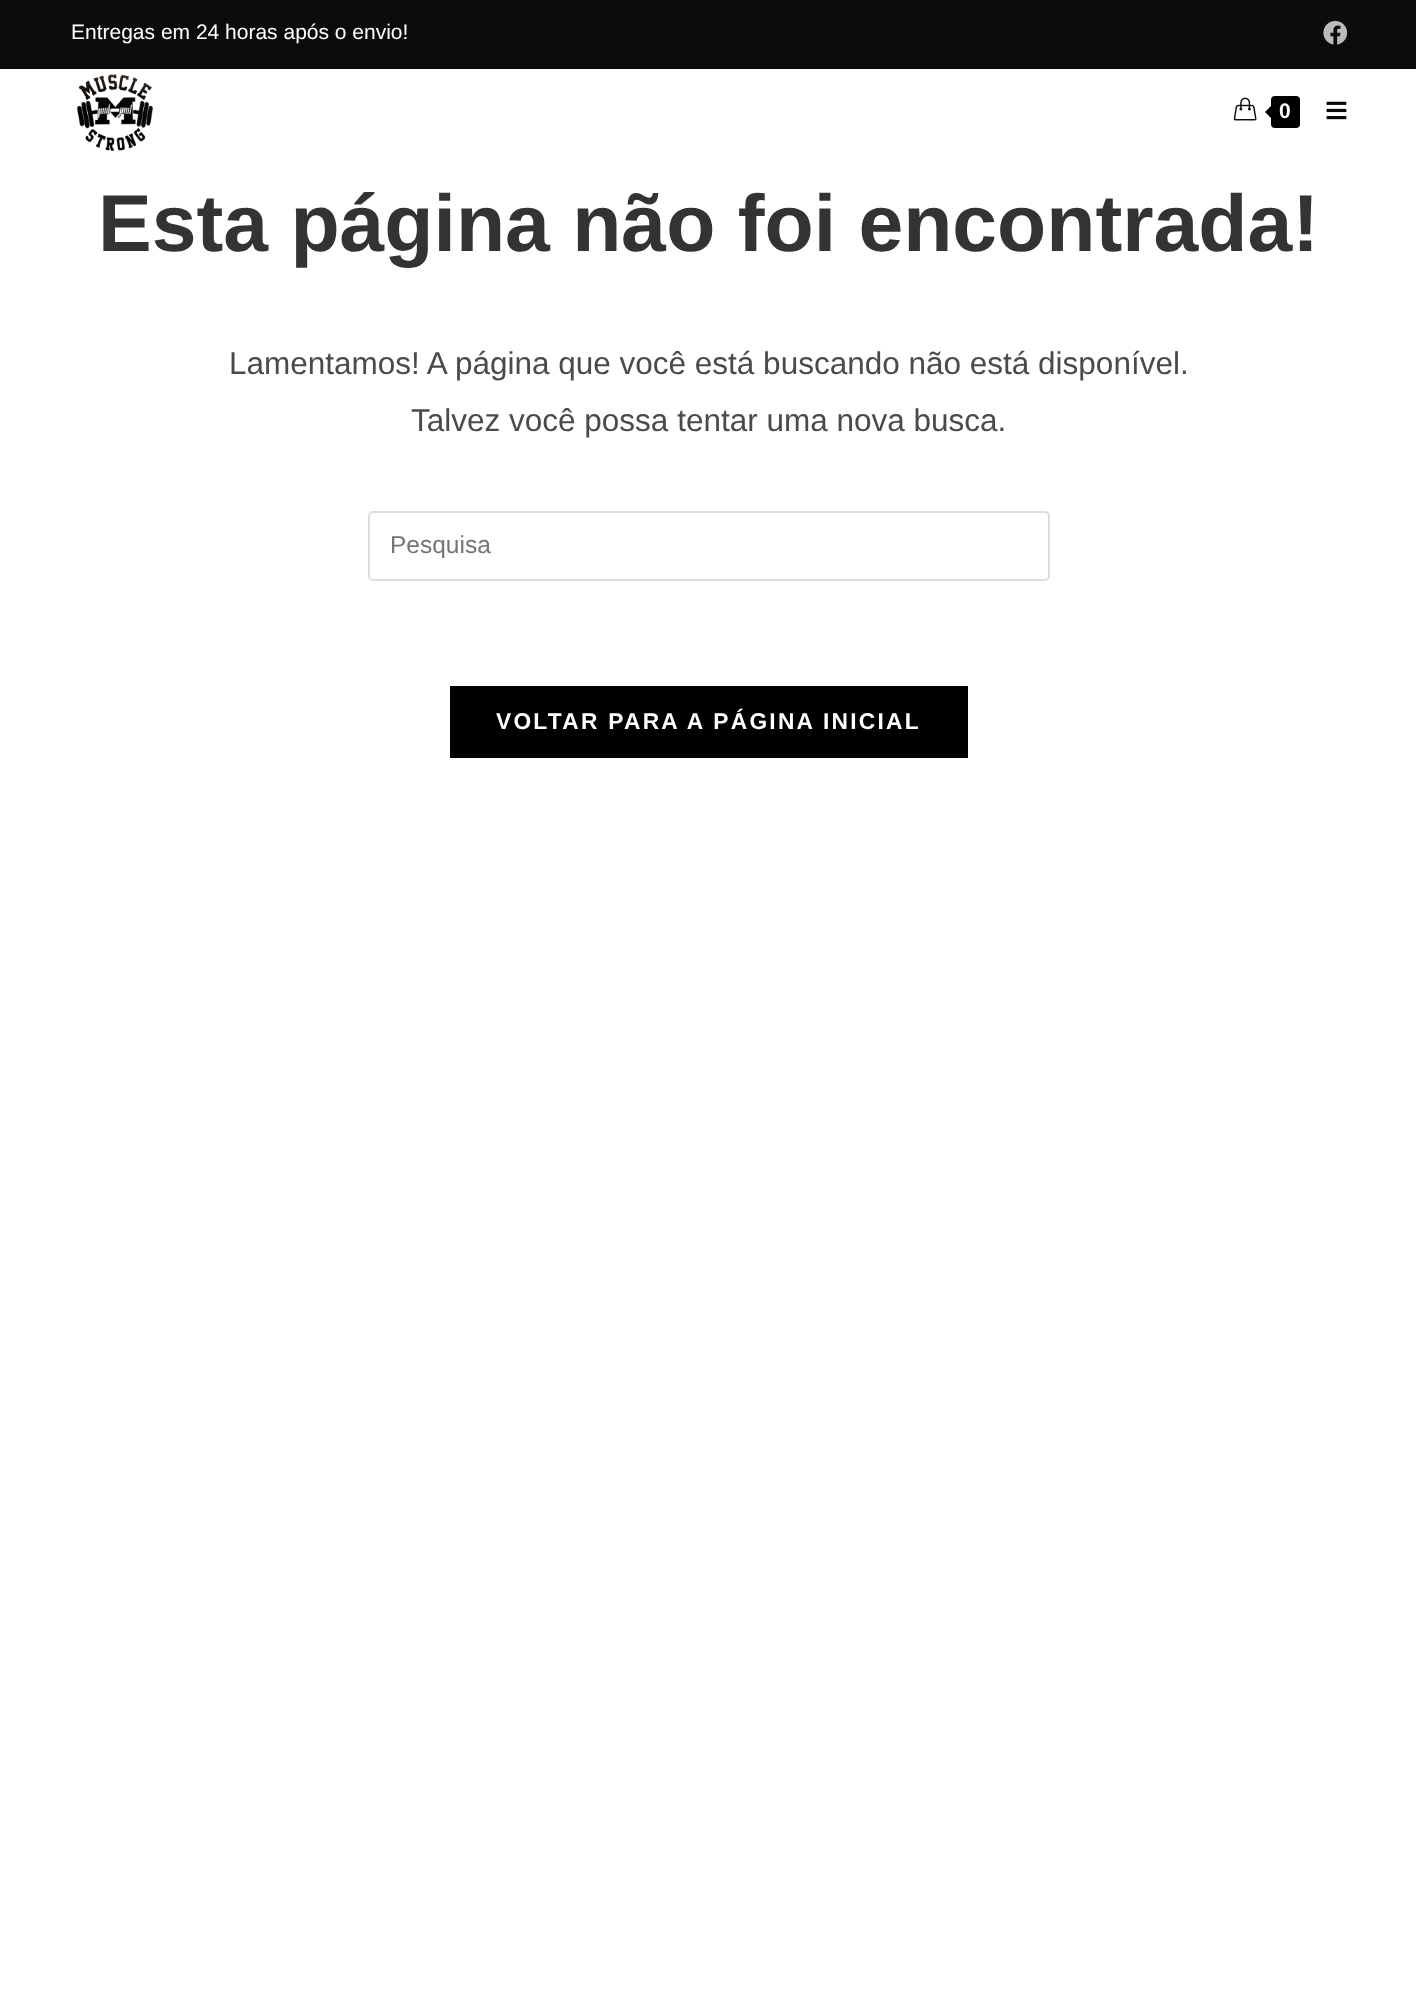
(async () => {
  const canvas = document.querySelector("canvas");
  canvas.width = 1416;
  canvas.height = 2009;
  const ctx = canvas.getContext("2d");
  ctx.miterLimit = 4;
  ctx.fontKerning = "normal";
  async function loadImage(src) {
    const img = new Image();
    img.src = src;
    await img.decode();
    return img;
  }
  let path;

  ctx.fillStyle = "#ffffff";
  ctx.fillRect(0, 0, 1416, 2009);
  ctx.fillStyle = "#0c0c0c";
  ctx.fillRect(0, 0, 1416, 67);
  ctx.fillStyle = "#0a0a0a";
  ctx.fillRect(0, 67, 1416, 2);
  ctx.drawImage(await loadImage("img/1.png"), 1323, 20, 25, 25);
  ctx.drawImage(await loadImage("img/2.png"), 76, 74, 77, 77);
  ctx.drawImage(await loadImage("img/3.png"), 1233, 97, 24, 24);
  ctx.fillStyle = "#000000";
  ctx.beginPath();
  ctx.roundRect(1271, 96, 29, 32, 4);
  ctx.fill();
  path = new Path2D("M1274 103V121L1265 112Z");
  ctx.fill(path);
  ctx.drawImage(await loadImage("img/4.png"), 1326, 101, 21, 19);
  ctx.beginPath();
  ctx.roundRect(369, 512, 680, 68, 4);
  ctx.strokeStyle = "#dddddd";
  ctx.lineWidth = 2;
  ctx.stroke();
  ctx.fillRect(450, 686, 518, 72);
  ctx.font = "21px Liberation Sans";
  ctx.fillStyle = "#ffffff";
  ctx.fillText("Entregas em 24 horas após o envio!", 71, 39);
  ctx.letterSpacing = "1px";
  ctx.font = "bold 21px Liberation Sans";
  ctx.fillText("0", 1279, 118);
  ctx.letterSpacing = "0px";
  ctx.font = "bold 80.5px Liberation Sans";
  ctx.fillStyle = "#333333";
  ctx.fillText("Esta página não foi encontrada!", 98, 251);
  ctx.font = "31.5px Liberation Sans";
  ctx.fillStyle = "#4a4a4a";
  ctx.fillText("Lamentamos! A página que você está buscando não está disponível.", 229, 374);
  ctx.fillText("Talvez você possa tentar uma nova busca.", 411, 431);
  ctx.font = "24.5px Liberation Sans";
  ctx.fillStyle = "#757575";
  ctx.fillText("Pesquisa", 390, 553);
  ctx.letterSpacing = "2.25px";
  ctx.font = "bold 22.75px Liberation Sans";
  ctx.fillStyle = "#ffffff";
  ctx.fillText("VOLTAR PARA A PÁGINA INICIAL", 496, 729);
})();
